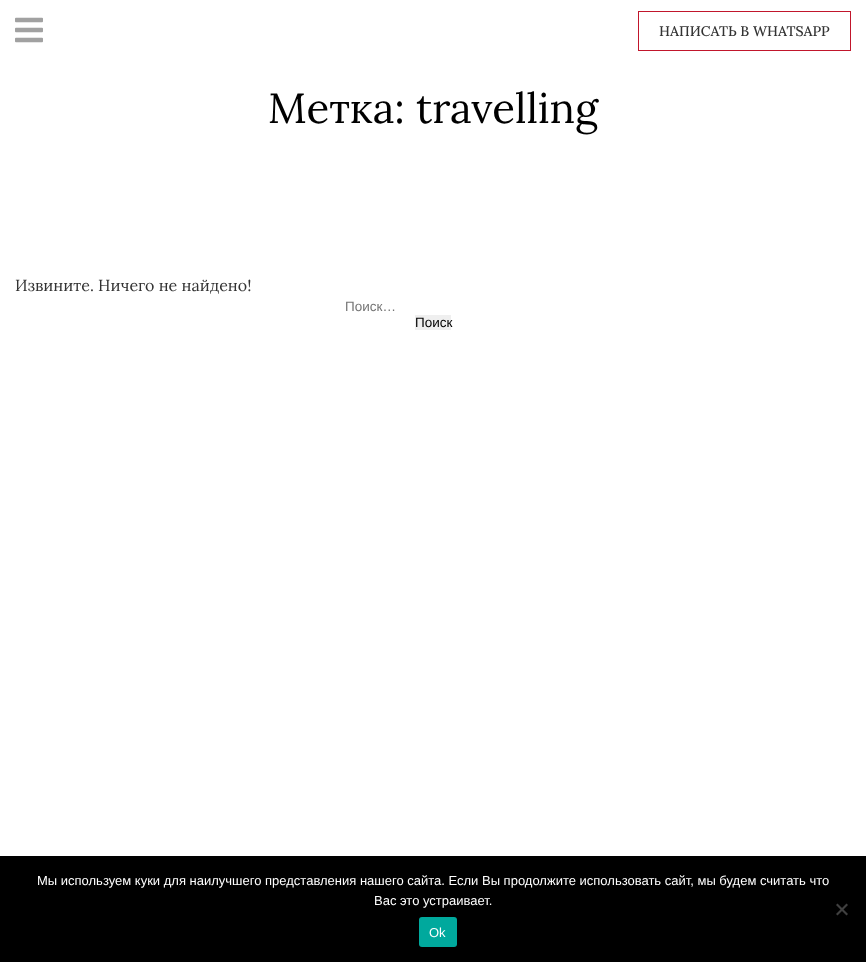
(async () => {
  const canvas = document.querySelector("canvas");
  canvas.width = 866;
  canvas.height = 962;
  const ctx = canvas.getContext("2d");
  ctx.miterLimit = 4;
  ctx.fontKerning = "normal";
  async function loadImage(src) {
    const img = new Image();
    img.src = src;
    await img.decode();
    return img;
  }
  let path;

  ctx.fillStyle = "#ffffff";
  ctx.fillRect(0, 0, 866, 962);
  ctx.drawImage(await loadImage("img/1.png"), 15, 17, 28, 26);
  ctx.strokeStyle = "#c1162c";
  ctx.strokeRect(638.5, 11.5, 212, 39);
  ctx.fillStyle = "#efefef";
  ctx.fillRect(415, 315, 36, 15);
  ctx.fillStyle = "#000000";
  ctx.fillRect(0, 856, 866, 106);
  ctx.fillStyle = "#404040";
  path = new Path2D("M846.5 903.5L848 905L837.5 915.5L836 914Z");
  ctx.fill(path);
  path = new Path2D("M836 905L837.5 903.5L848 914L846.5 915.5Z");
  ctx.fill(path);
  ctx.fillStyle = "#00a99d";
  ctx.beginPath();
  ctx.roundRect(419, 917, 38, 30, 3);
  ctx.fill();
  ctx.font = "500 14px Lora";
  ctx.fillStyle = "#333333";
  ctx.fillText("НАПИСАТЬ В WHATSAPP", 659, 36);
  ctx.font = "42px Lora";
  ctx.fillStyle = "#000000";
  ctx.fillText("Метка: travelling", 268, 123);
  ctx.font = "16px Lora";
  ctx.fillStyle = "#333333";
  ctx.fillText("Извините. Ничего не найдено!", 15, 291);
  ctx.font = "13.5px Liberation Sans";
  ctx.fillStyle = "#757575";
  ctx.fillText("Поиск…", 345, 311);
  ctx.fillStyle = "#000000";
  ctx.fillText("Поиск", 415, 327);
  ctx.font = "13px Liberation Sans";
  ctx.fillStyle = "#ffffff";
  for (const [text, x, y] of [
    ["Мы используем куки для наилучшего представления нашего сайта. Если Вы продолжите использовать сайт, мы будем считать что", 37, 885],
    ["Вас это устраивает.", 374, 905],
    ["Ok", 429, 937],
  ]) {
    ctx.fillText(text, x, y);
  }
})();
